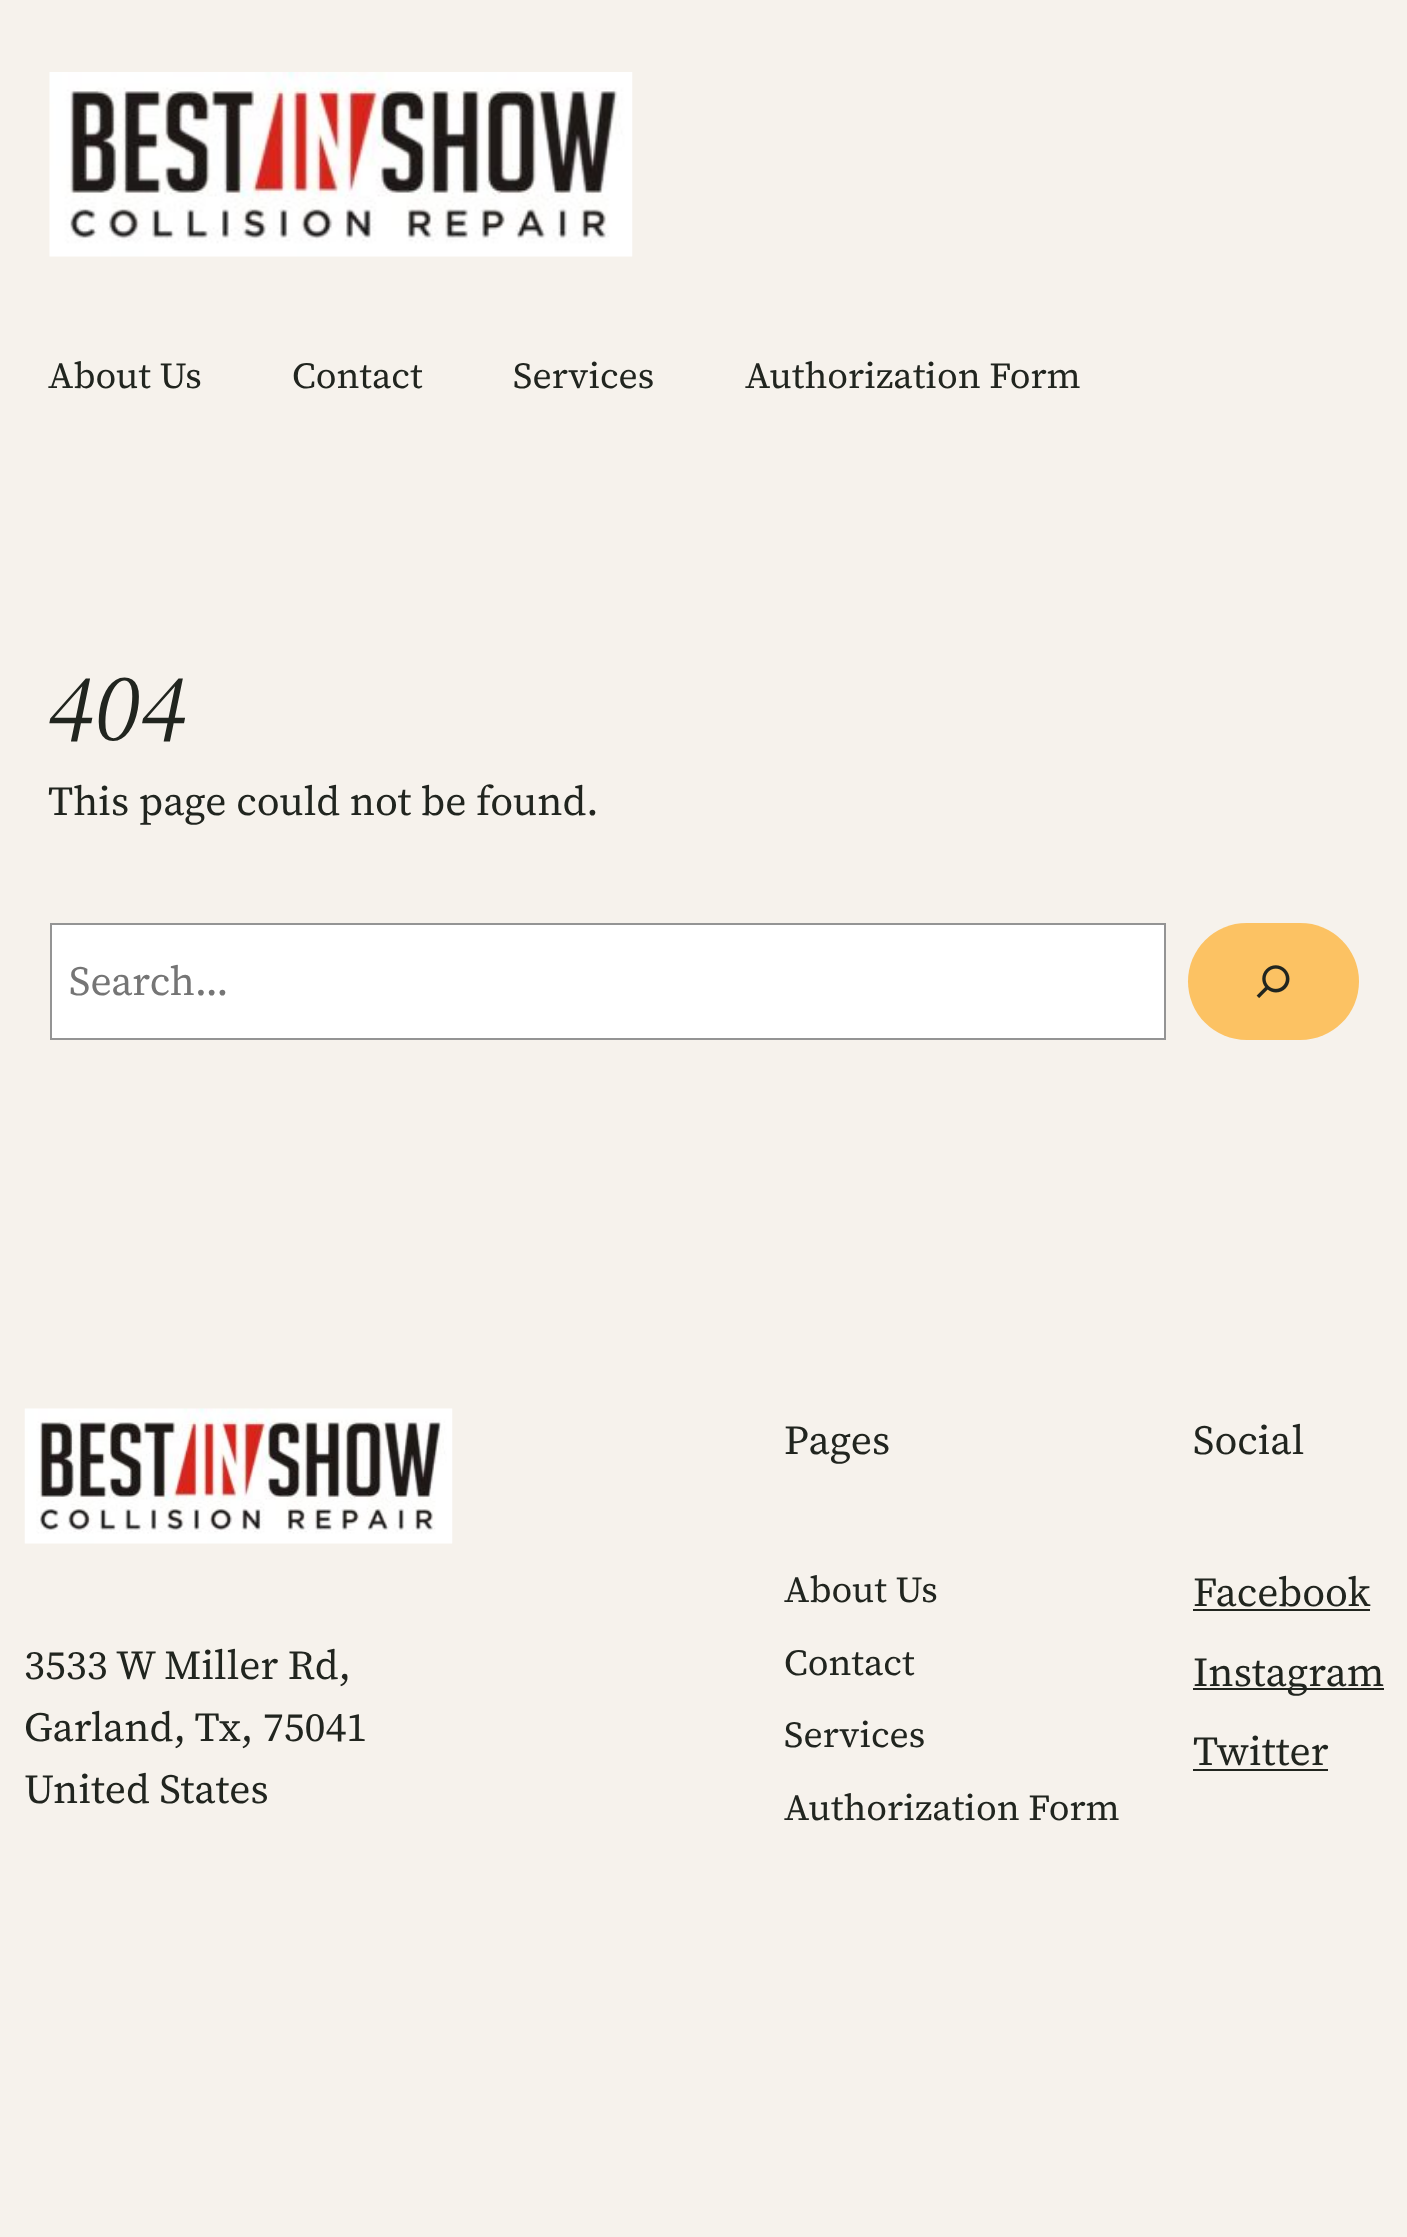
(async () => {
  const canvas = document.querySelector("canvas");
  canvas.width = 1407;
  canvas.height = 2237;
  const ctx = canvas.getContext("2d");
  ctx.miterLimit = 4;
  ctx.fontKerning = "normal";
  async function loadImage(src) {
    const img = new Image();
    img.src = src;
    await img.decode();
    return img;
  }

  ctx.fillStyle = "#f6f2ec";
  ctx.fillRect(0, 0, 1407, 2237);
  ctx.drawImage(await loadImage("img/1.png"), 49, 72, 584, 185);
  ctx.fillStyle = "#ffffff";
  ctx.beginPath();
  ctx.rect(51, 924, 1114, 115);
  ctx.fill();
  ctx.strokeStyle = "#949494";
  ctx.lineWidth = 2;
  ctx.stroke();
  ctx.fillStyle = "#fcc263";
  ctx.beginPath();
  ctx.roundRect(1188, 923, 171, 117, 58.5);
  ctx.fill();
  ctx.drawImage(await loadImage("img/2.png"), 1256, 965, 34, 33);
  ctx.drawImage(await loadImage("img/3.png"), 24, 1408, 429, 136);
  for (const [x, y, w, h, color] of [
    [1193, 1609, 177, 2, "#21251f"],
    [1193, 1688, 191, 2, "#21251f"],
    [1193, 1769, 135, 2, "#21251f"],
  ]) {
    ctx.fillStyle = color;
    ctx.fillRect(x, y, w, h);
  }
  ctx.font = "36.6px 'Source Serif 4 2'";
  for (const [text, x, y] of [
    ["About Us", 48, 388],
    ["Contact", 292, 388],
    ["Services", 513, 388],
    ["Authorization Form", 745, 388],
  ]) {
    ctx.fillText(text, x, y);
  }
  ctx.font = "italic 95px 'Source Serif 4'";
  ctx.fillText("404", 48, 740);
  ctx.font = "41.1px 'Source Serif 4'";
  ctx.fillText("This page could not be found.", 48, 815);
  ctx.fillStyle = "#757575";
  ctx.fillText("Search...", 69, 995);
  ctx.fillStyle = "#21251f";
  for (const [text, x, y] of [
    ["3533 W Miller Rd,", 24, 1679],
    ["Garland, Tx, 75041", 24, 1741],
    ["United States", 24, 1803],
    ["Pages", 784, 1454],
  ]) {
    ctx.fillText(text, x, y);
  }
  ctx.font = "36.6px 'Source Serif 4 2'";
  for (const [text, x, y] of [
    ["About Us", 784, 1602],
    ["Contact", 784, 1675],
    ["Services", 784, 1747],
    ["Authorization Form", 784, 1820],
  ]) {
    ctx.fillText(text, x, y);
  }
  ctx.font = "41.1px 'Source Serif 4'";
  for (const [text, x, y] of [
    ["Social", 1193, 1454],
    ["Facebook", 1193, 1606],
    ["Instagram", 1193, 1686],
    ["Twitter", 1193, 1765],
  ]) {
    ctx.fillText(text, x, y);
  }
})();
